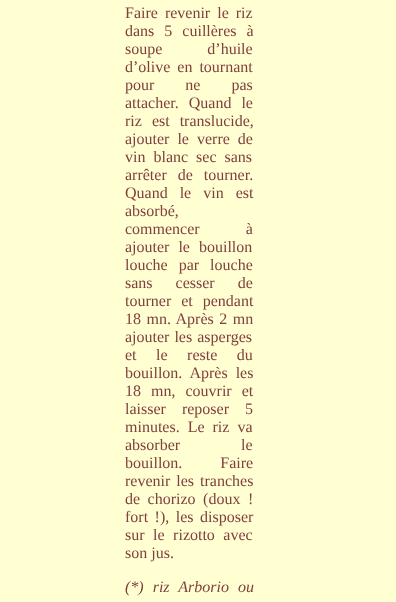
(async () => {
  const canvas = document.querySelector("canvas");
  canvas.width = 396;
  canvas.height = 602;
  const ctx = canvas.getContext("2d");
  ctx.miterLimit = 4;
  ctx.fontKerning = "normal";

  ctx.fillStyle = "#ffffd2";
  ctx.fillRect(0, 0, 396, 602);
  ctx.wordSpacing = "3px";
  ctx.font = "16px Liberation Serif";
  ctx.fillStyle = "#804040";
  ctx.fillText("Faire revenir le riz", 125, 18);
  ctx.wordSpacing = "6px";
  ctx.fillText("dans 5 cuillères à", 125, 36);
  ctx.wordSpacing = "41px";
  ctx.fillText("soupe d’huile", 125, 54);
  ctx.wordSpacing = "3px";
  ctx.fillText("d’olive en tournant", 125, 72);
  ctx.wordSpacing = "27px";
  ctx.fillText("pour ne pas", 125, 90);
  ctx.wordSpacing = "6px";
  ctx.fillText("attacher. Quand le", 125, 108);
  ctx.fillText("riz est translucide,", 125, 126);
  ctx.wordSpacing = "4px";
  ctx.fillText("ajouter le verre de", 125, 144);
  ctx.fillText("vin blanc sec sans", 125, 162);
  ctx.wordSpacing = "7px";
  ctx.fillText("arrêter de tourner.", 125, 180);
  ctx.wordSpacing = "8px";
  ctx.fillText("Quand le vin est", 125, 198);
  ctx.wordSpacing = "0px";
  ctx.fillText("absorbé,", 125, 216);
  ctx.wordSpacing = "42px";
  ctx.fillText("commencer à", 125, 234);
  ctx.wordSpacing = "5px";
  ctx.fillText("ajouter le bouillon", 125, 252);
  ctx.wordSpacing = "7px";
  ctx.fillText("louche par louche", 125, 270);
  ctx.wordSpacing = "19px";
  ctx.fillText("sans cesser de", 125, 288);
  ctx.wordSpacing = "6px";
  ctx.fillText("tourner et pendant", 125, 306);
  ctx.wordSpacing = "1.5px";
  ctx.fillText("18 mn. Après 2 mn", 125, 324);
  ctx.wordSpacing = "1px";
  ctx.fillText("ajouter les asperges", 125, 342);
  ctx.wordSpacing = "15.5px";
  ctx.fillText("et le reste du", 125, 360);
  ctx.wordSpacing = "4px";
  ctx.fillText("bouillon. Après les", 125, 378);
  ctx.wordSpacing = "6px";
  ctx.fillText("18 mn, couvrir et", 125, 396);
  ctx.wordSpacing = "12px";
  ctx.fillText("laisser reposer 5", 125, 414);
  ctx.wordSpacing = "4px";
  ctx.fillText("minutes. Le riz va", 125, 432);
  ctx.wordSpacing = "57px";
  ctx.fillText("absorber le", 125, 450);
  ctx.wordSpacing = "34px";
  ctx.fillText("bouillon. Faire", 125, 468);
  ctx.wordSpacing = "2px";
  ctx.fillText("revenir les tranches", 125, 486);
  ctx.wordSpacing = "3.5px";
  ctx.fillText("de chorizo (doux !", 125, 504);
  ctx.wordSpacing = "2.5px";
  ctx.fillText("fort !), les disposer", 125, 522);
  ctx.wordSpacing = "4.5px";
  ctx.fillText("sur le rizotto avec", 125, 540);
  ctx.wordSpacing = "0px";
  ctx.fillText("son jus.", 125, 558);
  ctx.wordSpacing = "5px";
  ctx.font = "italic 16px Liberation Serif";
  ctx.fillText("(*) riz Arborio ou", 125, 592);
})();
